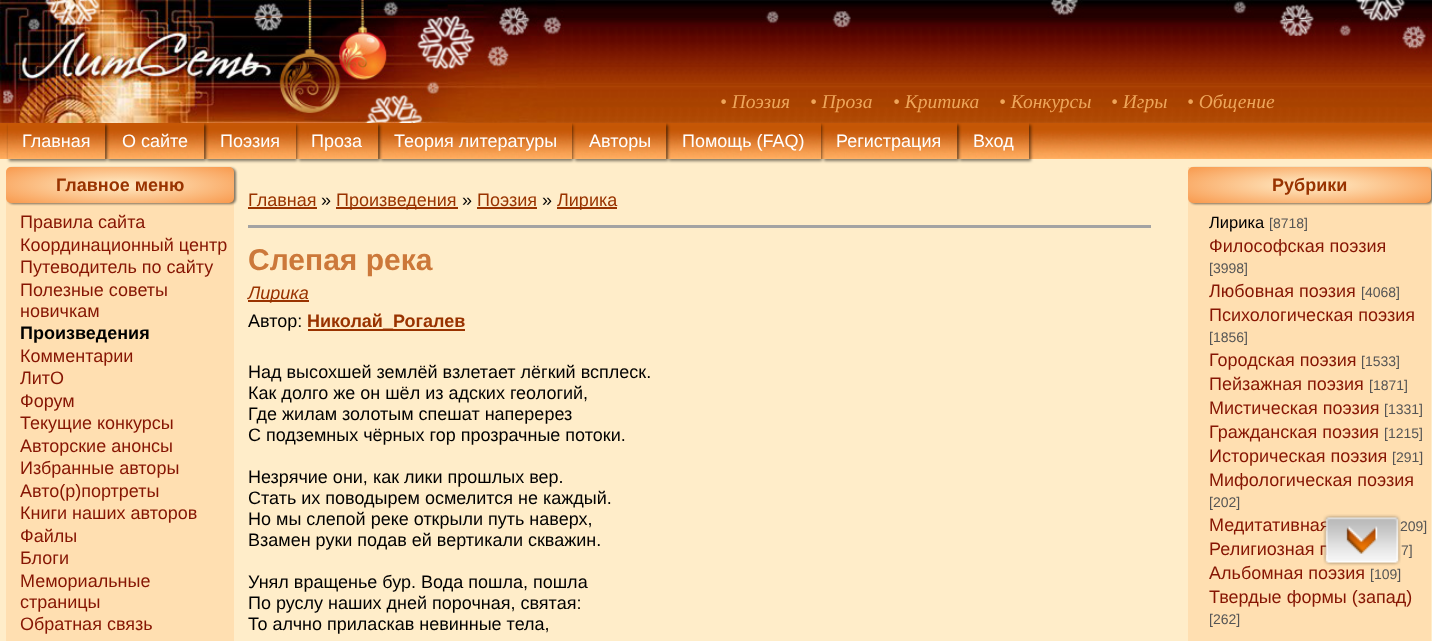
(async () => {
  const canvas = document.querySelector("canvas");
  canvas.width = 1432;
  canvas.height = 641;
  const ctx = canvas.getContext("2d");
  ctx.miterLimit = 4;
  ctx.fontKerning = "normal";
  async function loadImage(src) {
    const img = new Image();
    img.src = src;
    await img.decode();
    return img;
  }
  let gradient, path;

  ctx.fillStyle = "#ffedc9";
  ctx.fillRect(0, 0, 1432, 641);
  ctx.drawImage(await loadImage("img/2.png"), 0, 123, 1432, 36);
  ctx.save();
  path = new Path2D("M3 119H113V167H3ZM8 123H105V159H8Z");
  ctx.clip(path, "evenodd");
  ctx.fillStyle = "rgba(0, 0, 0, 0.5)";
  ctx.filter = "blur(1.5px)";
  ctx.beginPath();
  ctx.rect(9, 125, 98, 36);
  ctx.fill();
  ctx.filter = "none";
  ctx.restore();
  ctx.save();
  path = new Path2D("M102 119H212V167H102ZM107 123H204V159H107Z");
  ctx.clip(path, "evenodd");
  ctx.fillStyle = "rgba(0, 0, 0, 0.5)";
  ctx.filter = "blur(1.5px)";
  ctx.beginPath();
  ctx.rect(108, 125, 98, 36);
  ctx.fill();
  ctx.filter = "none";
  ctx.restore();
  ctx.save();
  path = new Path2D("M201 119H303V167H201ZM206 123H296V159H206Z");
  ctx.clip(path, "evenodd");
  ctx.fillStyle = "rgba(0, 0, 0, 0.5)";
  ctx.filter = "blur(1.5px)";
  ctx.beginPath();
  ctx.rect(207, 125, 90, 36);
  ctx.fill();
  ctx.filter = "none";
  ctx.restore();
  ctx.save();
  path = new Path2D("M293 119H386V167H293ZM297 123H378V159H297Z");
  ctx.clip(path, "evenodd");
  ctx.fillStyle = "rgba(0, 0, 0, 0.5)";
  ctx.filter = "blur(1.5px)";
  ctx.beginPath();
  ctx.rect(299, 125, 81, 36);
  ctx.fill();
  ctx.filter = "none";
  ctx.restore();
  ctx.save();
  path = new Path2D("M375 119H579V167H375ZM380 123H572V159H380Z");
  ctx.clip(path, "evenodd");
  ctx.fillStyle = "rgba(0, 0, 0, 0.5)";
  ctx.filter = "blur(1.5px)";
  ctx.beginPath();
  ctx.rect(381, 125, 192, 36);
  ctx.fill();
  ctx.filter = "none";
  ctx.restore();
  ctx.save();
  path = new Path2D("M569 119H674V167H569ZM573 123H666V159H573Z");
  ctx.clip(path, "evenodd");
  ctx.fillStyle = "rgba(0, 0, 0, 0.5)";
  ctx.filter = "blur(1.5px)";
  ctx.beginPath();
  ctx.rect(575, 125, 93, 36);
  ctx.fill();
  ctx.filter = "none";
  ctx.restore();
  ctx.save();
  path = new Path2D("M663 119H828V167H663ZM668 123H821V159H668Z");
  ctx.clip(path, "evenodd");
  ctx.fillStyle = "rgba(0, 0, 0, 0.5)";
  ctx.filter = "blur(1.5px)";
  ctx.beginPath();
  ctx.rect(669, 125, 153, 36);
  ctx.fill();
  ctx.filter = "none";
  ctx.restore();
  ctx.save();
  path = new Path2D("M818 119H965V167H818ZM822 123H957V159H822Z");
  ctx.clip(path, "evenodd");
  ctx.fillStyle = "rgba(0, 0, 0, 0.5)";
  ctx.filter = "blur(1.5px)";
  ctx.beginPath();
  ctx.rect(824, 125, 135, 36);
  ctx.fill();
  ctx.filter = "none";
  ctx.restore();
  ctx.save();
  path = new Path2D("M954 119H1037V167H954ZM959 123H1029V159H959Z");
  ctx.clip(path, "evenodd");
  ctx.fillStyle = "rgba(0, 0, 0, 0.5)";
  ctx.filter = "blur(1.5px)";
  ctx.beginPath();
  ctx.rect(960, 125, 71, 36);
  ctx.fill();
  ctx.filter = "none";
  ctx.restore();
  ctx.drawImage(await loadImage("img/1.png"), 0, 0, 1432, 123);
  ctx.fillStyle = "#ffdfb1";
  path = new Path2D("M11 167H229C232 167 234 169 234 172V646H6V172C6 169 8 167 11 167Z");
  ctx.fill(path);
  ctx.fillStyle = "rgba(0, 0, 0, 0.5)";
  ctx.filter = "blur(1px)";
  ctx.beginPath();
  ctx.roundRect(8, 168, 228, 36, 5);
  ctx.fill();
  ctx.filter = "none";
  gradient = ctx.createRadialGradient(120, 1052.19, 0, 120, 1052.19, 182);
  gradient.addColorStop(0, "#ffedc9");
  gradient.addColorStop(1, "#f78935");
  ctx.fillStyle = gradient;
  ctx.beginPath();
  ctx.roundRect(6, 167, 228, 36, 5);
  ctx.save();
  ctx.clip();
  ctx.scale(1, 32 / 182);
  ctx.fillRect(0, 0, 1432, 3646);
  ctx.restore();
  for (const [x, y, w, h, color] of [
    [248, 225, 903, 3, "#a3a3a3"],
    [248, 207, 69, 2, "#993300"],
    [336, 207, 122, 2, "#993300"],
    [477, 207, 60, 2, "#993300"],
    [557, 207, 60, 2, "#993300"],
    [248, 300, 61, 2, "#993300"],
    [308, 329, 157, 2, "#993300"],
    [1188, 167, 243, 474, "#ffdfb1"],
  ]) {
    ctx.fillStyle = color;
    ctx.fillRect(x, y, w, h);
  }
  ctx.fillStyle = "rgba(0, 0, 0, 0.5)";
  ctx.filter = "blur(1px)";
  ctx.beginPath();
  ctx.roundRect(1190, 168, 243, 36, 5);
  ctx.fill();
  ctx.filter = "none";
  gradient = ctx.createRadialGradient(1310, 1121.56, 0, 1310, 1121.56, 194);
  gradient.addColorStop(0, "#ffedc9");
  gradient.addColorStop(1, "#f78935");
  ctx.fillStyle = gradient;
  ctx.beginPath();
  ctx.roundRect(1188, 167, 243, 36, 5);
  ctx.save();
  ctx.clip();
  ctx.scale(1, 32 / 194);
  ctx.fillRect(0, 0, 1432, 3887);
  ctx.restore();
  ctx.font = "italic 19.5px Liberation Serif";
  ctx.fillStyle = "#eea55a";
  for (const [text, x, y] of [
    ["• Поэзия", 720, 108],
    ["• Проза", 810, 108],
    ["• Критика", 893, 108],
    ["• Конкурсы", 999, 108],
    ["• Игры", 1111, 108],
    ["• Общение", 1187, 108],
  ]) {
    ctx.fillText(text, x, y);
  }
  ctx.font = "18px Liberation Sans";
  ctx.fillStyle = "#ffffff";
  for (const [text, x, y] of [
    ["Главная", 22, 147],
    ["О сайте", 122, 147],
    ["Поэзия", 220, 147],
    ["Проза", 311, 147],
    ["Теория литературы", 394, 147],
    ["Авторы", 589, 147],
    ["Помощь (FAQ)", 682, 147],
    ["Регистрация", 836, 147],
    ["Вход", 973, 147],
  ]) {
    ctx.fillText(text, x, y);
  }
  ctx.font = "bold 18px Liberation Sans";
  ctx.fillStyle = "#993300";
  ctx.fillText("Главное меню", 56, 191);
  ctx.font = "18px Liberation Sans";
  ctx.fillStyle = "#861503";
  for (const [text, x, y] of [
    ["Правила сайта", 20, 228],
    ["Координационный центр", 20, 251],
    ["Путеводитель по сайту", 20, 273],
    ["Полезные советы", 20, 296],
    ["новичкам", 20, 317],
  ]) {
    ctx.fillText(text, x, y);
  }
  ctx.font = "bold 18px Liberation Sans";
  ctx.fillStyle = "#000000";
  ctx.fillText("Произведения", 20, 339);
  ctx.font = "18px Liberation Sans";
  ctx.fillStyle = "#861503";
  for (const [text, x, y] of [
    ["Комментарии", 20, 362],
    ["ЛитО", 20, 384],
    ["Форум", 20, 407],
    ["Текущие конкурсы", 20, 429],
    ["Авторские анонсы", 20, 452],
    ["Избранные авторы", 20, 474],
    ["Авто(р)портреты", 20, 497],
    ["Книги наших авторов", 20, 519],
    ["Файлы", 20, 542],
    ["Блоги", 20, 564],
    ["Мемориальные", 20, 587],
    ["страницы", 20, 608],
    ["Обратная связь", 20, 630],
  ]) {
    ctx.fillText(text, x, y);
  }
  ctx.fillStyle = "#993300";
  ctx.fillText("Главная", 248, 206);
  ctx.fillStyle = "#000000";
  ctx.fillText("»", 321, 206);
  ctx.fillStyle = "#993300";
  ctx.fillText("Произведения", 336, 206);
  ctx.fillStyle = "#000000";
  ctx.fillText("»", 462, 206);
  ctx.fillStyle = "#993300";
  ctx.fillText("Поэзия", 477, 206);
  ctx.fillStyle = "#000000";
  ctx.fillText("»", 542, 206);
  ctx.fillStyle = "#993300";
  ctx.fillText("Лирика", 557, 206);
  ctx.font = "bold 30px Liberation Sans";
  ctx.fillStyle = "#cc783a";
  ctx.fillText("Слепая река", 248, 270);
  ctx.font = "italic 18px Liberation Sans";
  ctx.fillStyle = "#993300";
  ctx.fillText("Лирика", 248, 299);
  ctx.font = "18px Liberation Sans";
  ctx.fillStyle = "#000000";
  ctx.fillText("Автор:", 248, 327);
  ctx.font = "bold 18px Liberation Sans";
  ctx.fillStyle = "#993300";
  ctx.fillText("Николай_Рогалев", 307, 327);
  ctx.font = "18px Liberation Sans";
  ctx.fillStyle = "#000000";
  for (const [text, x, y] of [
    ["Над высохшей землёй взлетает лёгкий всплеск.", 248, 378],
    ["Как долго же он шёл из адских геологий,", 248, 399],
    ["Где жилам золотым спешат наперерез", 248, 420],
    ["С подземных чёрных гор прозрачные потоки.", 248, 441],
    ["Незрячие они, как лики прошлых вер.", 248, 483],
    ["Стать их поводырем осмелится не каждый.", 248, 504],
    ["Но мы слепой реке открыли путь наверх,", 248, 525],
    ["Взамен руки подав ей вертикали скважин.", 248, 546],
    ["Унял вращенье бур. Вода пошла, пошла", 248, 588],
    ["По руслу наших дней порочная, святая:", 248, 609],
    ["То алчно приласкав невинные тела,", 248, 630],
  ]) {
    ctx.fillText(text, x, y);
  }
  ctx.font = "bold 18px Liberation Sans";
  ctx.fillStyle = "#993300";
  ctx.fillText("Рубрики", 1272, 191);
  ctx.font = "16.5px Liberation Sans";
  ctx.fillStyle = "#000000";
  ctx.fillText("Лирика", 1209, 228);
  ctx.font = "14px Liberation Sans";
  ctx.fillStyle = "#555555";
  ctx.fillText("[8718]", 1269, 228);
  ctx.font = "18px Liberation Sans";
  ctx.fillStyle = "#861503";
  ctx.fillText("Философская поэзия", 1209, 252);
  ctx.font = "14px Liberation Sans";
  ctx.fillStyle = "#555555";
  ctx.fillText("[3998]", 1209, 273);
  ctx.font = "18px Liberation Sans";
  ctx.fillStyle = "#861503";
  ctx.fillText("Любовная поэзия", 1209, 297);
  ctx.font = "14px Liberation Sans";
  ctx.fillStyle = "#555555";
  ctx.fillText("[4068]", 1361, 297);
  ctx.font = "18px Liberation Sans";
  ctx.fillStyle = "#861503";
  ctx.fillText("Психологическая поэзия", 1209, 321);
  ctx.font = "14px Liberation Sans";
  ctx.fillStyle = "#555555";
  ctx.fillText("[1856]", 1209, 342);
  ctx.font = "18px Liberation Sans";
  ctx.fillStyle = "#861503";
  ctx.fillText("Городская поэзия", 1209, 366);
  ctx.font = "14px Liberation Sans";
  ctx.fillStyle = "#555555";
  ctx.fillText("[1533]", 1361, 366);
  ctx.font = "18px Liberation Sans";
  ctx.fillStyle = "#861503";
  ctx.fillText("Пейзажная поэзия", 1209, 390);
  ctx.font = "14px Liberation Sans";
  ctx.fillStyle = "#555555";
  ctx.fillText("[1871]", 1369, 390);
  ctx.font = "18px Liberation Sans";
  ctx.fillStyle = "#861503";
  ctx.fillText("Мистическая поэзия", 1209, 414);
  ctx.font = "14px Liberation Sans";
  ctx.fillStyle = "#555555";
  ctx.fillText("[1331]", 1384, 414);
  ctx.font = "18px Liberation Sans";
  ctx.fillStyle = "#861503";
  ctx.fillText("Гражданская поэзия", 1209, 438);
  ctx.font = "14px Liberation Sans";
  ctx.fillStyle = "#555555";
  ctx.fillText("[1215]", 1384, 438);
  ctx.font = "18px Liberation Sans";
  ctx.fillStyle = "#861503";
  ctx.fillText("Историческая поэзия", 1209, 462);
  ctx.font = "14px Liberation Sans";
  ctx.fillStyle = "#555555";
  ctx.fillText("[291]", 1392, 462);
  ctx.font = "18px Liberation Sans";
  ctx.fillStyle = "#861503";
  ctx.fillText("Мифологическая поэзия", 1209, 486);
  ctx.font = "14px Liberation Sans";
  ctx.fillStyle = "#555555";
  ctx.fillText("[202]", 1209, 507);
  ctx.font = "18px Liberation Sans";
  ctx.fillStyle = "#861503";
  ctx.fillText("Медитативная", 1209, 531);
  ctx.font = "14px Liberation Sans";
  ctx.fillStyle = "#555555";
  ctx.fillText("209]", 1400, 531);
  ctx.font = "18px Liberation Sans";
  ctx.fillStyle = "#861503";
  ctx.fillText("Религиозная п", 1209, 555);
  ctx.font = "14px Liberation Sans";
  ctx.fillStyle = "#555555";
  ctx.fillText("7]", 1401, 555);
  ctx.font = "18px Liberation Sans";
  ctx.fillStyle = "#861503";
  ctx.fillText("Альбомная поэзия", 1209, 579);
  ctx.font = "14px Liberation Sans";
  ctx.fillStyle = "#555555";
  ctx.fillText("[109]", 1370, 579);
  ctx.font = "18px Liberation Sans";
  ctx.fillStyle = "#861503";
  ctx.fillText("Твердые формы (запад)", 1209, 603);
  ctx.font = "14px Liberation Sans";
  ctx.fillStyle = "#555555";
  ctx.fillText("[262]", 1209, 624);
  ctx.drawImage(await loadImage("img/3.png"), 1323, 514, 78, 52);
})();
